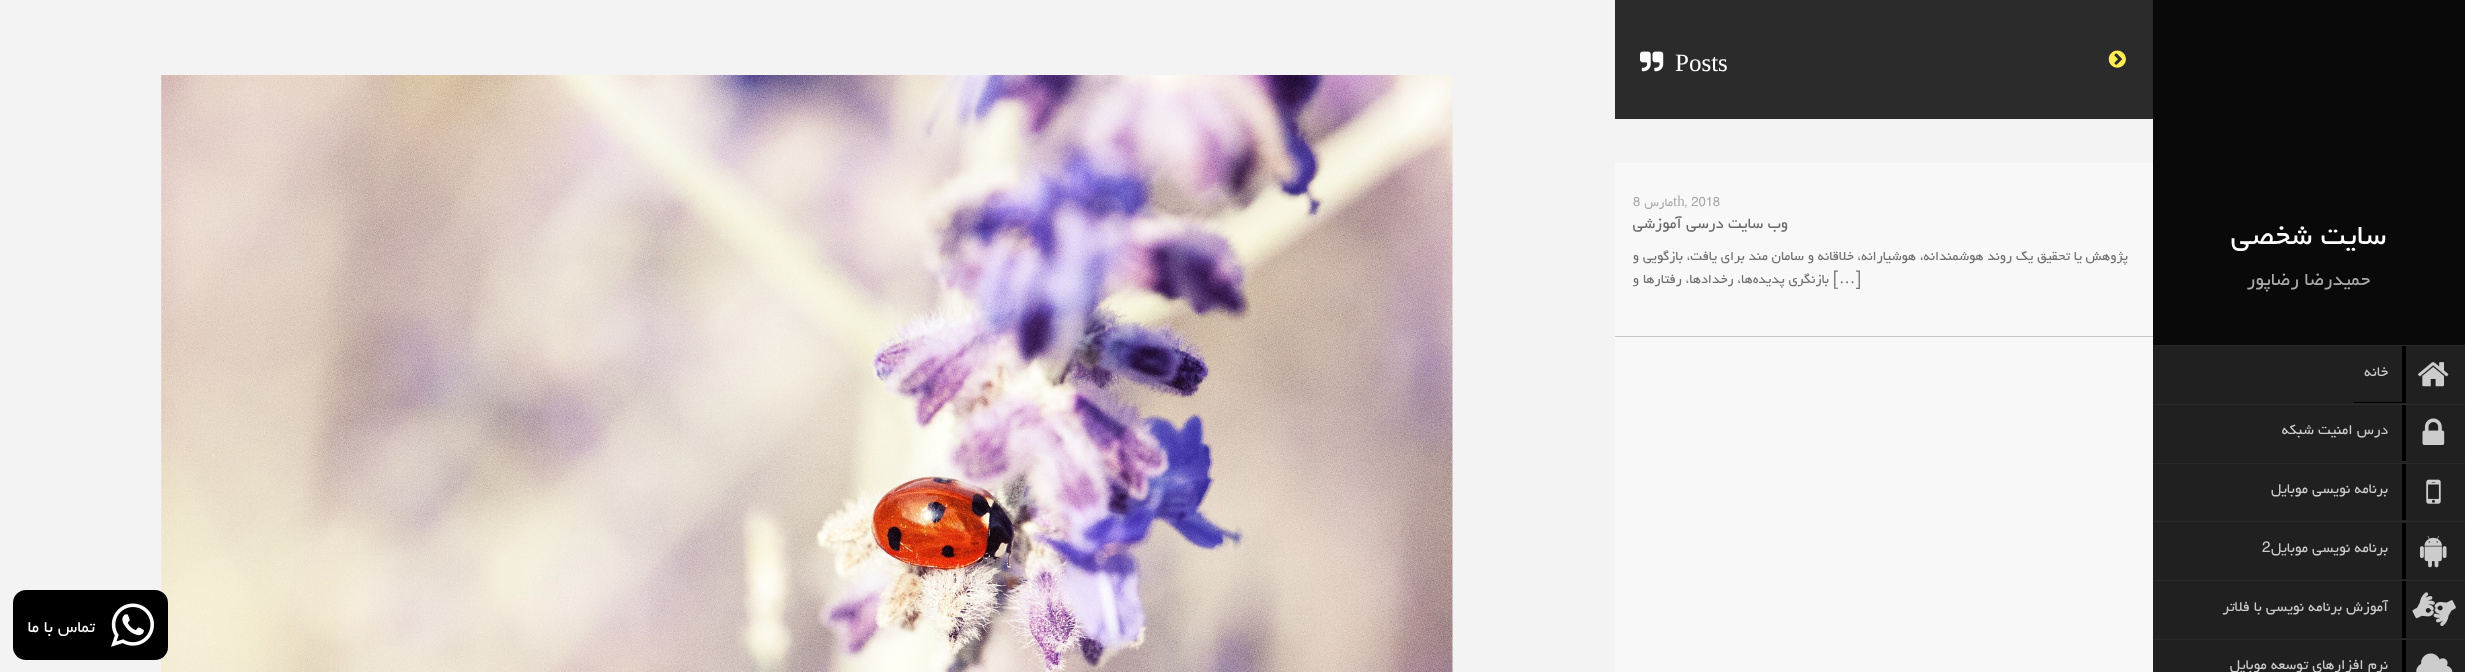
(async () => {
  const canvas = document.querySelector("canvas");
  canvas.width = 2465;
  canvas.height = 672;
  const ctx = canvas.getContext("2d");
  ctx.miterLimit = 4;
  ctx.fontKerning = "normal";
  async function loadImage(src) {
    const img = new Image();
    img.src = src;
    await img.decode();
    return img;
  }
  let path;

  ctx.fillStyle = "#090909";
  ctx.fillRect(0, 0, 2465, 672);
  ctx.fillStyle = "#2b2b2b";
  ctx.fillRect(1615, 0, 538, 119);
  ctx.drawImage(await loadImage("img/1.png"), 2108, 50, 18, 18);
  ctx.fillStyle = "#f3f3f3";
  ctx.fillRect(0, 0, 1615, 672);
  ctx.drawImage(await loadImage("img/2.png"), 161, 75, 1292, 597);
  ctx.fillStyle = "#f8f8f8";
  ctx.fillRect(1615, 338, 538, 334);
  ctx.drawImage(await loadImage("img/3.png"), 1640, 51, 24, 21);
  ctx.save();
  ctx.beginPath();
  ctx.rect(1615, 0, 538, 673);
  ctx.clip();
  ctx.fillStyle = "#222222";
  ctx.filter = "blur(3px)";
  ctx.beginPath();
  ctx.rect(1619, 124, 530, 36);
  ctx.fill();
  ctx.filter = "none";
  ctx.restore();
  for (const [x, y, w, h, color] of [
    [1615, 119, 538, 44, "#f3f3f3"],
    [1615, 163, 538, 175, "#f8f8f8"],
    [1615, 336, 538, 1, "#c6c6c6"],
    [2153, 346, 312, 57, "#202020"],
    [2153, 345, 312, 1, "#292929"],
    [2153, 403, 312, 1, "#242424"],
  ]) {
    ctx.fillStyle = color;
    ctx.fillRect(x, y, w, h);
  }
  ctx.drawImage(await loadImage("img/4.png"), 2418, 362, 31, 25);
  ctx.fillStyle = "#000000";
  path = new Path2D("M2354 346H2402V402H2354V403H2406V346Z");
  ctx.fill(path);
  for (const [x, y, w, h, color] of [
    [2153, 405, 312, 58, "#202020"],
    [2153, 404, 312, 1, "#292929"],
    [2153, 461, 312, 1, "#242424"],
  ]) {
    ctx.fillStyle = color;
    ctx.fillRect(x, y, w, h);
  }
  ctx.drawImage(await loadImage("img/5.png"), 2422, 418, 23, 27);
  for (const [x, y, w, h, color] of [
    [2402, 405, 4, 56, "#000000"],
    [2153, 464, 312, 56, "#202020"],
    [2153, 463, 312, 1, "#292929"],
    [2153, 520, 312, 1, "#242424"],
  ]) {
    ctx.fillStyle = color;
    ctx.fillRect(x, y, w, h);
  }
  ctx.drawImage(await loadImage("img/6.png"), 2426, 479, 15, 25);
  for (const [x, y, w, h, color] of [
    [2402, 464, 4, 56, "#000000"],
    [2153, 522, 312, 57, "#202020"],
    [2153, 521, 312, 1, "#292929"],
    [2153, 579, 312, 1, "#242424"],
  ]) {
    ctx.fillStyle = color;
    ctx.fillRect(x, y, w, h);
  }
  ctx.drawImage(await loadImage("img/7.png"), 2420, 536, 27, 32);
  ctx.fillStyle = "#000000";
  path = new Path2D("M2251 579H2406V523H2402V579Z");
  ctx.fill(path);
  for (const [x, y, w, h, color] of [
    [2153, 581, 312, 57, "#202020"],
    [2153, 580, 312, 1, "#292929"],
    [2153, 638, 312, 1, "#242424"],
  ]) {
    ctx.fillStyle = color;
    ctx.fillRect(x, y, w, h);
  }
  ctx.drawImage(await loadImage("img/8.png"), 2412, 592, 44, 34);
  ctx.fillStyle = "#000000";
  path = new Path2D("M2211 581H2402V638H2211H2406V581Z");
  ctx.fill(path);
  ctx.fillStyle = "#202020";
  ctx.fillRect(2153, 640, 312, 32);
  ctx.fillStyle = "#292929";
  ctx.fillRect(2153, 639, 312, 1);
  ctx.drawImage(await loadImage("img/9.png"), 2416, 653, 37, 19);
  ctx.fillStyle = "#000000";
  ctx.fillRect(2402, 640, 4, 32);
  ctx.beginPath();
  ctx.roundRect(13, 590, 155, 70, 13);
  ctx.fill();
  ctx.drawImage(await loadImage("img/10.png"), 111, 603, 43, 44);
  ctx.font = "25px Liberation Serif";
  ctx.fillStyle = "#ffffff";
  ctx.fillText("Posts", 1675, 71);
  ctx.font = "15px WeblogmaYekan";
  ctx.fillStyle = "#aaaaaa";
  ctx.fillText(", 2018", 1684, 206);
  ctx.direction = "rtl";
  ctx.fillText("مارس", 1673, 206);
  ctx.direction = "ltr";
  ctx.font = "15px Liberation Serif";
  ctx.fillText("th", 1673, 206);
  ctx.font = "15px WeblogmaYekan";
  ctx.fillText("8", 1633, 206);
  ctx.direction = "rtl";
  ctx.font = "18.75px WeblogmaYekan";
  ctx.fillStyle = "#676767";
  ctx.fillText("وب سایت درسی آموزشی", 1788, 228);
  ctx.font = "16.25px WeblogmaYekan";
  ctx.fillStyle = "#6f6f6f";
  ctx.fillText("پژوهش یا تحقیق یک روند هوشمندانه، هوشیارانه، خلاقانه و سامان مند برای یافت، بازگویی و", 2128, 260);
  ctx.direction = "ltr";
  ctx.fillText("]", 1855, 283);
  ctx.font = "16.25px Liberation Serif";
  ctx.fillText("…", 1839, 283);
  ctx.font = "16.25px WeblogmaYekan";
  ctx.fillText("[", 1833, 283);
  ctx.direction = "rtl";
  ctx.fillText("بازنگری پدیده‌ها، رخدادها، رفتارها و", 1829, 283);
  ctx.font = "35px WeblogmaYekan";
  ctx.fillStyle = "#ffffff";
  ctx.fillText("سایت شخصی", 2386, 244);
  ctx.font = "22.5px WeblogmaYekan";
  ctx.fillStyle = "#aaaaaa";
  ctx.fillText("حمیدرضا رضاپور", 2370, 285);
  ctx.font = "17.5px WeblogmaYekan";
  ctx.fillStyle = "#cccccc";
  for (const [text, x, y] of [
    ["خانه", 2388, 376],
    ["درس امنیت شبکه", 2388, 434],
    ["برنامه نویسی موبایل", 2388, 493],
    ["برنامه نویسی موبایل", 2388, 552],
  ]) {
    ctx.fillText(text, x, y);
  }
  ctx.direction = "ltr";
  ctx.fillText("2", 2262, 552);
  ctx.direction = "rtl";
  ctx.fillText("آموزش برنامه نویسی با فلاتر", 2388, 611);
  ctx.fillText("نرم افزارهای توسعه موبایل", 2388, 669);
  ctx.font = "20px WeblogmaYekan";
  ctx.fillStyle = "#ffffff";
  ctx.fillText("تماس با ما", 95, 632);
})();
